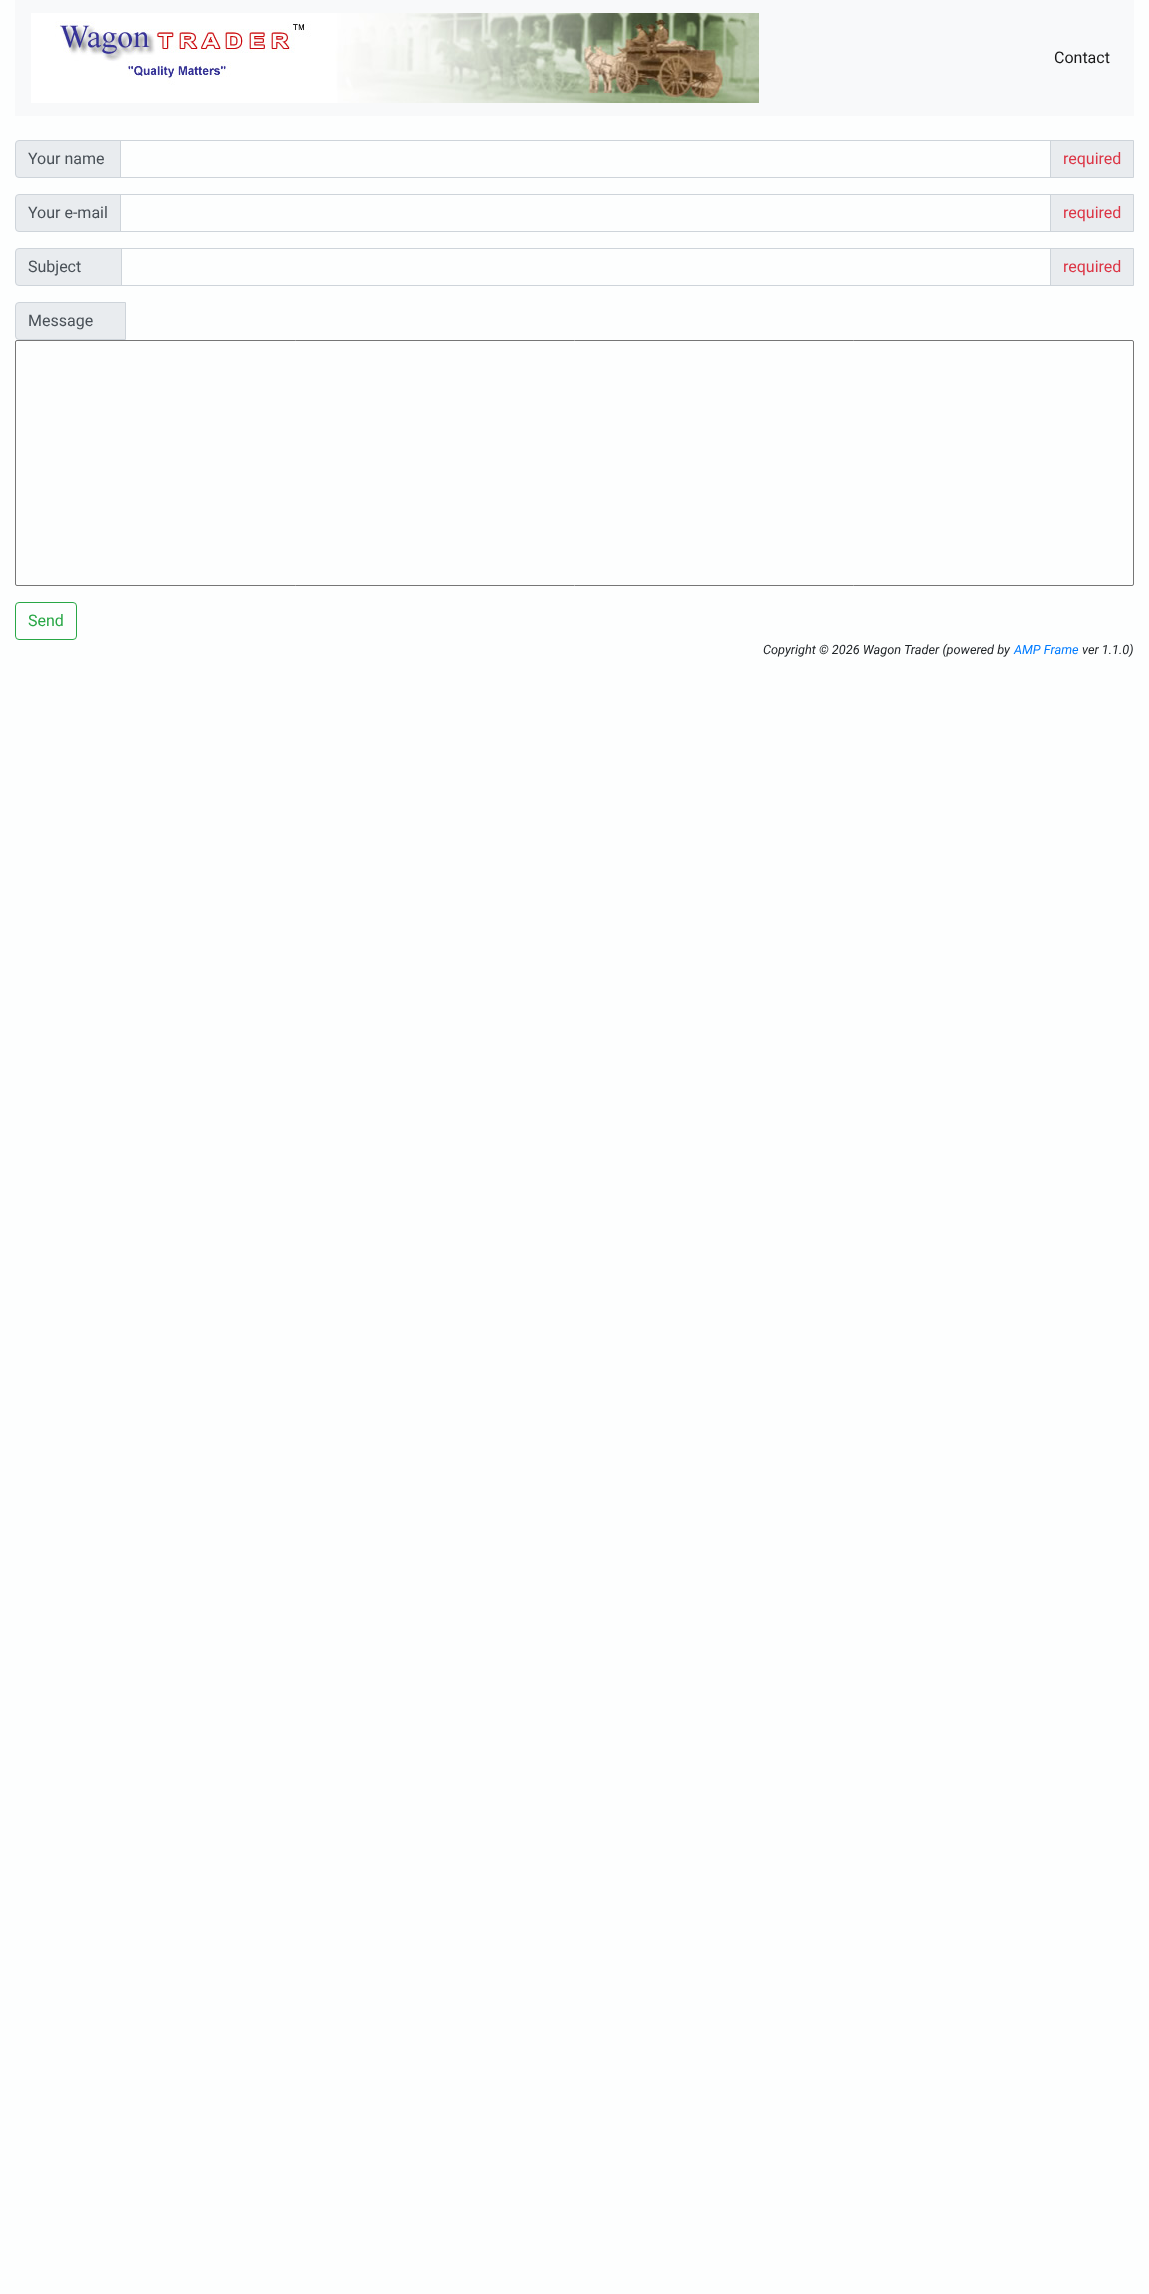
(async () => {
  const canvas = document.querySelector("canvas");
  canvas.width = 1149;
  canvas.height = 2294;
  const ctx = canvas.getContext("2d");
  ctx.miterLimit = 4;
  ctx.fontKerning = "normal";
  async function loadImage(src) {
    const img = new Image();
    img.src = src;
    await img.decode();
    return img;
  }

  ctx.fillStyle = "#fdfefe";
  ctx.fillRect(0, 0, 1149, 2294);
  ctx.fillStyle = "#f8f9fa";
  ctx.fillRect(15, 0, 1119, 116);
  ctx.drawImage(await loadImage("img/1.png"), 31, 13, 728, 90);
  ctx.fillStyle = "#e9ecef";
  ctx.beginPath();
  ctx.roundRect(15.5, 140.5, 105, 37, [3.5, 0, 0, 3.5]);
  ctx.fill();
  ctx.strokeStyle = "#ced4da";
  ctx.stroke();
  ctx.beginPath();
  ctx.rect(1050.5, 140.5, 83, 37);
  ctx.fill();
  ctx.stroke();
  ctx.strokeRect(120.5, 140.5, 930, 37);
  ctx.beginPath();
  ctx.roundRect(15.5, 194.5, 105, 37, [3.5, 0, 0, 3.5]);
  ctx.fill();
  ctx.stroke();
  ctx.beginPath();
  ctx.rect(1050.5, 194.5, 83, 37);
  ctx.fill();
  ctx.stroke();
  ctx.strokeRect(120.5, 194.5, 930, 37);
  ctx.beginPath();
  ctx.roundRect(15.5, 248.5, 106, 37, [3.5, 0, 0, 3.5]);
  ctx.fill();
  ctx.stroke();
  ctx.beginPath();
  ctx.rect(1050.5, 248.5, 83, 37);
  ctx.fill();
  ctx.stroke();
  ctx.strokeRect(121.5, 248.5, 929, 37);
  ctx.beginPath();
  ctx.roundRect(15.5, 302.5, 110, 37, [3.5, 0, 0, 3.5]);
  ctx.fill();
  ctx.stroke();
  ctx.beginPath();
  ctx.roundRect(15.5, 340.5, 1118, 245, 1.5);
  ctx.strokeStyle = "#767676";
  ctx.stroke();
  ctx.beginPath();
  ctx.roundRect(15.5, 602.5, 61, 37, 3.5);
  ctx.strokeStyle = "#28a745";
  ctx.stroke();
  ctx.font = "16px Roboto";
  ctx.fillStyle = "#191919";
  ctx.fillText("Contact", 1054, 63);
  ctx.fillStyle = "#495057";
  ctx.fillText("Your name", 28, 164);
  ctx.fillStyle = "#dc3545";
  ctx.fillText("required", 1063, 164);
  ctx.fillStyle = "#495057";
  ctx.fillText("Your e-mail", 28, 218);
  ctx.fillStyle = "#dc3545";
  ctx.fillText("required", 1063, 218);
  ctx.fillStyle = "#495057";
  ctx.fillText("Subject", 28, 272);
  ctx.fillStyle = "#dc3545";
  ctx.fillText("required", 1063, 272);
  ctx.fillStyle = "#495057";
  ctx.fillText("Message", 28, 326);
  ctx.fillStyle = "#28a745";
  ctx.fillText("Send", 28, 626);
  ctx.font = "italic 12.75px Roboto";
  ctx.fillStyle = "#212529";
  ctx.fillText("Copyright © 2026 Wagon Trader (powered by", 763, 654);
  ctx.fillStyle = "#007bff";
  ctx.fillText("AMP Frame", 1014, 654);
  ctx.fillStyle = "#212529";
  ctx.fillText("ver 1.1.0)", 1082, 654);
})();
